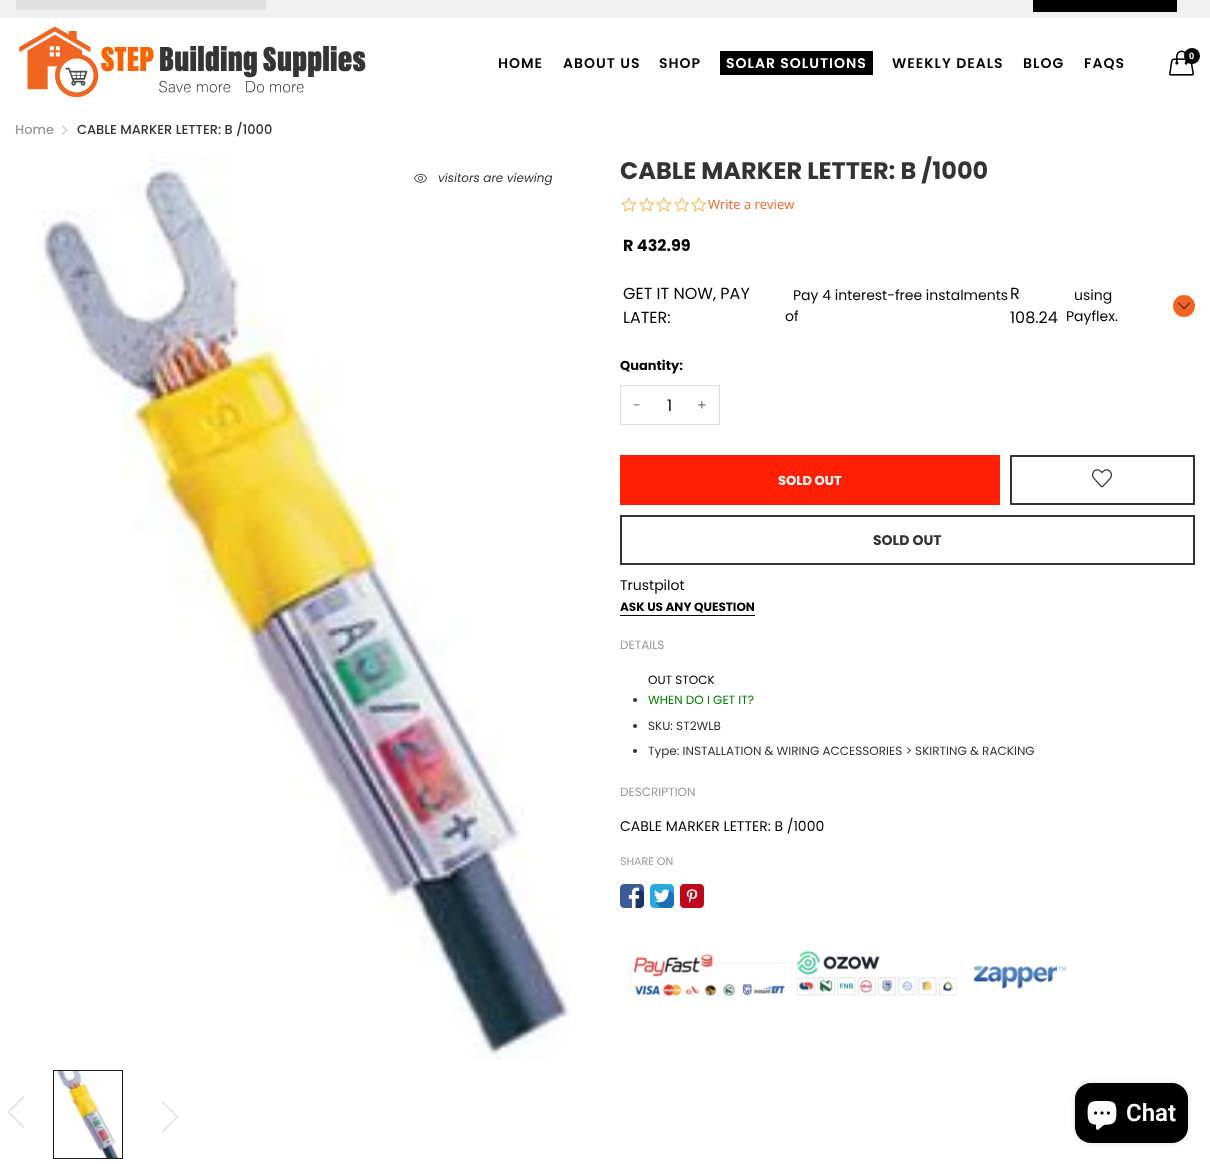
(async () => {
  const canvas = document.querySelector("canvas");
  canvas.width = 1210;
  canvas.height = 1164;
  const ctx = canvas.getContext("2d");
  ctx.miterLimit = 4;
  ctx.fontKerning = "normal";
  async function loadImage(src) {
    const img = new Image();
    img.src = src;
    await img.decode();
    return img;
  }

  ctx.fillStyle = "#ffffff";
  ctx.fillRect(0, 0, 1210, 1164);
  for (const [x, y, w, h, color] of [
    [0, 0, 1210, 18, "#f0f0f0"],
    [16, 0, 250, 10, "#e0e0e0"],
    [1033, 0, 144, 12, "#000000"],
  ]) {
    ctx.fillStyle = color;
    ctx.fillRect(x, y, w, h);
  }
  ctx.drawImage(await loadImage("img/1.png"), 19, 26, 347, 71);
  ctx.drawImage(await loadImage("img/2.png"), 1169, 50, 25, 26);
  ctx.fillStyle = "#060606";
  ctx.beginPath();
  ctx.arc(1192, 56, 8, 0, Math.PI * 2);
  ctx.fill();
  ctx.fillStyle = "#000000";
  ctx.fillRect(720, 51, 153, 24);
  ctx.drawImage(await loadImage("img/3.png"), 62, 125, 5, 10);
  ctx.drawImage(await loadImage("img/4.png"), 34, 156, 536, 904);
  ctx.drawImage(await loadImage("img/5.png"), 414, 173, 13, 10);
  ctx.drawImage(await loadImage("img/6.png"), 7, 1096, 18, 32);
  ctx.strokeStyle = "#1a1b1c";
  ctx.strokeRect(53.5, 1070.5, 69, 88);
  ctx.drawImage(await loadImage("img/7.png"), 54, 1071, 65, 87);
  ctx.drawImage(await loadImage("img/8.png"), 161, 1101, 18, 32);
  ctx.drawImage(await loadImage("img/9.png"), 621, 197, 16, 15);
  ctx.drawImage(await loadImage("img/9.png"), 639, 197, 16, 15);
  ctx.drawImage(await loadImage("img/9.png"), 656, 197, 16, 15);
  ctx.drawImage(await loadImage("img/9.png"), 674, 197, 16, 15);
  ctx.drawImage(await loadImage("img/9.png"), 691, 197, 16, 15);
  ctx.fillStyle = "#f16522";
  ctx.beginPath();
  ctx.arc(1184, 306, 11, 0, Math.PI * 2);
  ctx.fill();
  ctx.drawImage(await loadImage("img/10.png"), 1178, 302, 12, 7);
  ctx.strokeStyle = "#dddddd";
  ctx.strokeRect(620.5, 385.5, 99, 39);
  ctx.fillStyle = "#ff1f06";
  ctx.fillRect(620, 455, 380, 50);
  ctx.strokeStyle = "#333333";
  ctx.lineWidth = 2;
  ctx.strokeRect(1011, 456, 183, 48);
  ctx.drawImage(await loadImage("img/11.png"), 1092, 469, 20, 19);
  ctx.strokeRect(621, 516, 573, 48);
  ctx.fillStyle = "#060606";
  ctx.fillRect(620, 615, 135, 1);
  ctx.fillStyle = "#333333";
  ctx.beginPath();
  ctx.arc(635, 700, 2, 0, Math.PI * 2);
  ctx.fill();
  ctx.beginPath();
  ctx.arc(635, 726, 2, 0, Math.PI * 2);
  ctx.fill();
  ctx.beginPath();
  ctx.arc(635, 751, 2, 0, Math.PI * 2);
  ctx.fill();
  ctx.drawImage(await loadImage("img/12.png"), 620, 884, 24, 24);
  ctx.drawImage(await loadImage("img/13.png"), 650, 884, 24, 24);
  ctx.drawImage(await loadImage("img/14.png"), 680, 884, 24, 24);
  ctx.drawImage(await loadImage("img/15.png"), 630, 950, 437, 47);
  ctx.fillStyle = "rgba(0, 0, 0, 0.15)";
  ctx.filter = "blur(2.5px)";
  ctx.beginPath();
  ctx.roundRect(1075, 1083, 113, 60, 16);
  ctx.fill();
  ctx.filter = "none";
  ctx.fillStyle = "#000000";
  ctx.beginPath();
  ctx.roundRect(1075, 1083, 113, 60, 16);
  ctx.fill();
  ctx.drawImage(await loadImage("img/16.png"), 1087, 1101, 30, 29);
  ctx.letterSpacing = "1px";
  ctx.font = "bold 9px Open Sans";
  ctx.fillStyle = "#f0f0f0";
  ctx.fillText("0", 1189, 59);
  ctx.font = "600 14px Poppins";
  ctx.fillStyle = "#060606";
  for (const [text, x, y] of [
    ["HOME", 498, 68],
    ["ABOUT US", 563, 68],
    ["SHOP", 659, 68],
  ]) {
    ctx.fillText(text, x, y);
  }
  ctx.fillStyle = "#ffffff";
  ctx.fillText("SOLAR SOLUTIONS", 726, 68);
  ctx.fillStyle = "#060606";
  for (const [text, x, y] of [
    ["WEEKLY DEALS", 892, 68],
    ["BLOG", 1023, 68],
    ["FAQS", 1084, 68],
  ]) {
    ctx.fillText(text, x, y);
  }
  ctx.letterSpacing = "0px";
  ctx.font = "500 13px Poppins";
  ctx.fillStyle = "#999999";
  ctx.fillText("Home", 15, 134);
  ctx.fillStyle = "#333333";
  ctx.fillText("CABLE MARKER LETTER: B /1000", 77, 134);
  ctx.font = "italic 12px Poppins";
  ctx.fillText("visitors are viewing", 438, 182);
  ctx.font = "bold 24px Poppins";
  ctx.fillText("CABLE MARKER LETTER: B /1000", 620, 179);
  ctx.font = "13px Open Sans";
  ctx.fillStyle = "#f06523";
  ctx.fillText("Write a review", 708, 209);
  ctx.font = "bold 16px Poppins";
  ctx.fillStyle = "#060606";
  ctx.fillText("R 432.99", 623, 251);
  ctx.font = "16px Poppins";
  ctx.fillText("GET IT NOW, PAY", 623, 299);
  ctx.fillText("LATER:", 623, 323);
  ctx.font = "14px Poppins";
  ctx.fillText("of", 785, 321);
  ctx.fillText("Pay 4 interest-free instalments", 793, 300);
  ctx.font = "16px Poppins";
  ctx.fillText("R", 1010, 299);
  ctx.fillText("108.24", 1010, 323);
  ctx.font = "14px Poppins";
  ctx.fillText("using", 1074, 300);
  ctx.fillText("Payflex.", 1066, 321);
  ctx.font = "bold 13px Poppins";
  ctx.fillText("Quantity:", 620, 370);
  ctx.font = "14px Poppins";
  ctx.fillStyle = "#777777";
  ctx.fillText("-", 633, 410);
  ctx.font = "16px Poppins";
  ctx.fillStyle = "#060606";
  ctx.fillText("1", 667, 411);
  ctx.font = "14px Poppins";
  ctx.fillStyle = "#777777";
  ctx.fillText("+", 697, 410);
  ctx.font = "bold 13px Poppins";
  ctx.fillStyle = "#ffffff";
  ctx.fillText("SOLD OUT", 778, 485);
  ctx.font = "bold 14px Poppins";
  ctx.fillStyle = "#333333";
  ctx.fillText("SOLD OUT", 873, 545);
  ctx.font = "14px Poppins";
  ctx.fillStyle = "#060606";
  ctx.fillText("Trustpilot", 620, 590);
  ctx.font = "bold 12px Poppins";
  ctx.fillText("ASK US ANY QUESTION", 620, 611);
  ctx.font = "12px Poppins";
  ctx.fillStyle = "#999999";
  ctx.fillText("DETAILS", 620, 649);
  ctx.fillStyle = "#060606";
  ctx.fillText("OUT STOCK", 648, 684);
  ctx.fillStyle = "#008000";
  ctx.fillText("WHEN DO I GET IT?", 648, 704);
  ctx.fillStyle = "#333333";
  ctx.fillText("SKU: ST2WLB", 648, 730);
  ctx.fillText("Type: INSTALLATION & WIRING ACCESSORIES > SKIRTING & RACKING", 648, 755);
  ctx.fillStyle = "#999999";
  ctx.fillText("DESCRIPTION", 620, 796);
  ctx.font = "14px Poppins";
  ctx.fillStyle = "#060606";
  ctx.fillText("CABLE MARKER LETTER: B /1000", 620, 831);
  ctx.font = "11px Poppins";
  ctx.fillStyle = "#999999";
  ctx.fillText("SHARE ON", 620, 865);
  ctx.font = "600 24px Roboto";
  ctx.fillStyle = "#ffffff";
  ctx.fillText("Chat", 1126, 1121);
})();
